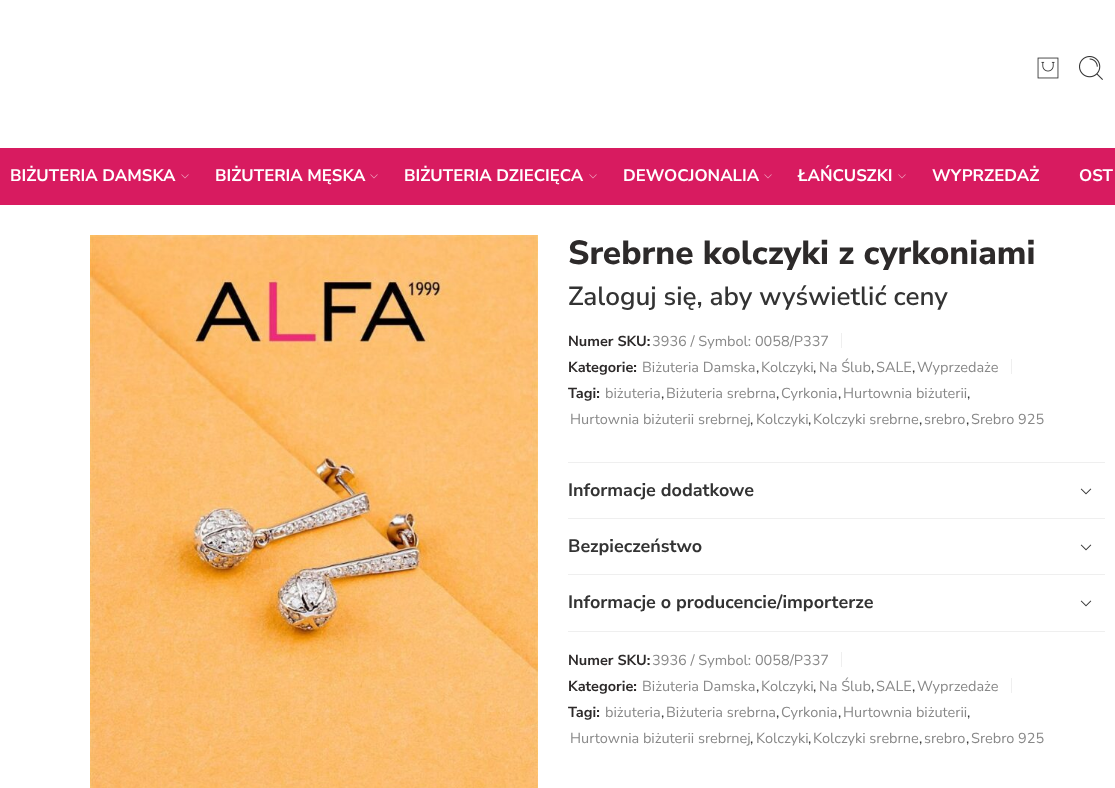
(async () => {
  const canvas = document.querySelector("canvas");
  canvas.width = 1115;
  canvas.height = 788;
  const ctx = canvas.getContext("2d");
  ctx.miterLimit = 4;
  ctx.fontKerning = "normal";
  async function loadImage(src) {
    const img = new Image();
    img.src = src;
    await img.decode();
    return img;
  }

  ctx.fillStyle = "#ffffff";
  ctx.fillRect(0, 0, 1115, 788);
  ctx.drawImage(await loadImage("img/1.png"), 1037, 57, 22, 22);
  ctx.drawImage(await loadImage("img/2.png"), 1079, 56, 24, 24);
  ctx.fillStyle = "#d81b60";
  ctx.fillRect(0, 148, 1115, 57);
  ctx.drawImage(await loadImage("img/3.png"), 181, 174, 8, 5);
  ctx.drawImage(await loadImage("img/3.png"), 370, 174, 8, 5);
  ctx.drawImage(await loadImage("img/3.png"), 589, 174, 8, 5);
  ctx.drawImage(await loadImage("img/3.png"), 764, 174, 8, 5);
  ctx.drawImage(await loadImage("img/3.png"), 898, 174, 8, 5);
  ctx.drawImage(await loadImage("img/4.png"), 90, 235, 448, 553);
  for (const [x, y, w, h, color] of [
    [841, 333, 1, 15, "#efefef"],
    [1011, 359, 1, 15, "#efefef"],
    [568, 462, 537, 1, "#efefef"],
    [568, 518, 537, 1, "#efefef"],
  ]) {
    ctx.fillStyle = color;
    ctx.fillRect(x, y, w, h);
  }
  ctx.drawImage(await loadImage("img/5.png"), 1080, 488, 12, 7);
  ctx.fillRect(568, 574, 537, 1);
  ctx.drawImage(await loadImage("img/5.png"), 1080, 544, 12, 7);
  ctx.fillRect(568, 631, 537, 1);
  ctx.drawImage(await loadImage("img/5.png"), 1080, 600, 12, 7);
  ctx.fillRect(841, 652, 1, 15);
  ctx.fillRect(1011, 678, 1, 15);
  ctx.font = "bold 16.75px Nunito Sans";
  ctx.fillStyle = "#ffffff";
  for (const [text, x, y] of [
    ["BIŻUTERIA DAMSKA", 10, 181],
    ["BIŻUTERIA MĘSKA", 215, 181],
    ["BIŻUTERIA DZIECIĘCA", 404, 181],
    ["DEWOCJONALIA", 623, 181],
    ["ŁAŃCUSZKI", 798, 181],
    ["WYPRZEDAŻ", 932, 181],
    ["OST", 1079, 181],
  ]) {
    ctx.fillText(text, x, y);
  }
  ctx.font = "800 33.4px Nunito Sans";
  ctx.fillStyle = "#2d2a2a";
  ctx.fillText("Srebrne kolczyki z cyrkoniami", 568, 264);
  ctx.font = "600 26.1px Nunito Sans";
  ctx.fillStyle = "#333333";
  ctx.fillText("Zaloguj się, aby wyświetlić ceny", 568, 305);
  ctx.font = "bold 14.5px Nunito Sans";
  ctx.fillStyle = "#2d2a2a";
  ctx.fillText("Numer SKU:", 568, 346);
  ctx.font = "14.5px Nunito Sans";
  ctx.fillStyle = "#888888";
  ctx.fillText("3936 / Symbol: 0058/P337", 652, 346);
  ctx.font = "bold 14.5px Nunito Sans";
  ctx.fillStyle = "#2d2a2a";
  ctx.fillText("Kategorie:", 568, 372);
  ctx.font = "14.5px Nunito Sans";
  ctx.fillStyle = "#888888";
  ctx.fillText("Biżuteria Damska", 642, 372);
  ctx.fillStyle = "#333333";
  ctx.fillText(",", 756, 372);
  ctx.fillStyle = "#888888";
  ctx.fillText("Kolczyki", 761, 372);
  ctx.fillStyle = "#333333";
  ctx.fillText(",", 813, 372);
  ctx.fillStyle = "#888888";
  ctx.fillText("Na Ślub", 819, 372);
  ctx.fillStyle = "#333333";
  ctx.fillText(",", 871, 372);
  ctx.fillStyle = "#888888";
  ctx.fillText("SALE", 876, 372);
  ctx.fillStyle = "#333333";
  ctx.fillText(",", 912, 372);
  ctx.fillStyle = "#888888";
  ctx.fillText("Wyprzedaże", 917, 372);
  ctx.font = "bold 14.5px Nunito Sans";
  ctx.fillStyle = "#2d2a2a";
  ctx.fillText("Tagi:", 568, 398);
  ctx.font = "14.5px Nunito Sans";
  ctx.fillStyle = "#888888";
  ctx.fillText("biżuteria", 605, 398);
  ctx.fillStyle = "#333333";
  ctx.fillText(",", 661, 398);
  ctx.fillStyle = "#888888";
  ctx.fillText("Biżuteria srebrna", 666, 398);
  ctx.fillStyle = "#333333";
  ctx.fillText(",", 776, 398);
  ctx.fillStyle = "#888888";
  ctx.fillText("Cyrkonia", 781, 398);
  ctx.fillStyle = "#333333";
  ctx.fillText(",", 838, 398);
  ctx.fillStyle = "#888888";
  ctx.fillText("Hurtownia biżuterii", 843, 398);
  ctx.fillStyle = "#333333";
  ctx.fillText(",", 967, 398);
  ctx.fillStyle = "#888888";
  ctx.fillText("Hurtownia biżuterii srebrnej", 570, 424);
  ctx.fillStyle = "#333333";
  ctx.fillText(",", 750, 424);
  ctx.fillStyle = "#888888";
  ctx.fillText("Kolczyki", 756, 424);
  ctx.fillStyle = "#333333";
  ctx.fillText(",", 808, 424);
  ctx.fillStyle = "#888888";
  ctx.fillText("Kolczyki srebrne", 813, 424);
  ctx.fillStyle = "#333333";
  ctx.fillText(",", 919, 424);
  ctx.fillStyle = "#888888";
  ctx.fillText("srebro", 924, 424);
  ctx.fillStyle = "#333333";
  ctx.fillText(",", 966, 424);
  ctx.fillStyle = "#888888";
  ctx.fillText("Srebro 925", 971, 424);
  ctx.font = "bold 18px Nunito Sans";
  ctx.fillStyle = "#333333";
  for (const [text, x, y] of [
    ["Informacje dodatkowe", 568, 496],
    ["Bezpieczeństwo", 568, 552],
    ["Informacje o producencie/importerze", 568, 608],
  ]) {
    ctx.fillText(text, x, y);
  }
  ctx.font = "bold 14.5px Nunito Sans";
  ctx.fillStyle = "#2d2a2a";
  ctx.fillText("Numer SKU:", 568, 665);
  ctx.font = "14.5px Nunito Sans";
  ctx.fillStyle = "#888888";
  ctx.fillText("3936 / Symbol: 0058/P337", 652, 665);
  ctx.font = "bold 14.5px Nunito Sans";
  ctx.fillStyle = "#2d2a2a";
  ctx.fillText("Kategorie:", 568, 691);
  ctx.font = "14.5px Nunito Sans";
  ctx.fillStyle = "#888888";
  ctx.fillText("Biżuteria Damska", 642, 691);
  ctx.fillStyle = "#333333";
  ctx.fillText(",", 756, 691);
  ctx.fillStyle = "#888888";
  ctx.fillText("Kolczyki", 761, 691);
  ctx.fillStyle = "#333333";
  ctx.fillText(",", 813, 691);
  ctx.fillStyle = "#888888";
  ctx.fillText("Na Ślub", 819, 691);
  ctx.fillStyle = "#333333";
  ctx.fillText(",", 871, 691);
  ctx.fillStyle = "#888888";
  ctx.fillText("SALE", 876, 691);
  ctx.fillStyle = "#333333";
  ctx.fillText(",", 912, 691);
  ctx.fillStyle = "#888888";
  ctx.fillText("Wyprzedaże", 917, 691);
  ctx.font = "bold 14.5px Nunito Sans";
  ctx.fillStyle = "#2d2a2a";
  ctx.fillText("Tagi:", 568, 717);
  ctx.font = "14.5px Nunito Sans";
  ctx.fillStyle = "#888888";
  ctx.fillText("biżuteria", 605, 717);
  ctx.fillStyle = "#333333";
  ctx.fillText(",", 661, 717);
  ctx.fillStyle = "#888888";
  ctx.fillText("Biżuteria srebrna", 666, 717);
  ctx.fillStyle = "#333333";
  ctx.fillText(",", 776, 717);
  ctx.fillStyle = "#888888";
  ctx.fillText("Cyrkonia", 781, 717);
  ctx.fillStyle = "#333333";
  ctx.fillText(",", 838, 717);
  ctx.fillStyle = "#888888";
  ctx.fillText("Hurtownia biżuterii", 843, 717);
  ctx.fillStyle = "#333333";
  ctx.fillText(",", 967, 717);
  ctx.fillStyle = "#888888";
  ctx.fillText("Hurtownia biżuterii srebrnej", 570, 743);
  ctx.fillStyle = "#333333";
  ctx.fillText(",", 750, 743);
  ctx.fillStyle = "#888888";
  ctx.fillText("Kolczyki", 756, 743);
  ctx.fillStyle = "#333333";
  ctx.fillText(",", 808, 743);
  ctx.fillStyle = "#888888";
  ctx.fillText("Kolczyki srebrne", 813, 743);
  ctx.fillStyle = "#333333";
  ctx.fillText(",", 919, 743);
  ctx.fillStyle = "#888888";
  ctx.fillText("srebro", 924, 743);
  ctx.fillStyle = "#333333";
  ctx.fillText(",", 966, 743);
  ctx.fillStyle = "#888888";
  ctx.fillText("Srebro 925", 971, 743);
})();
